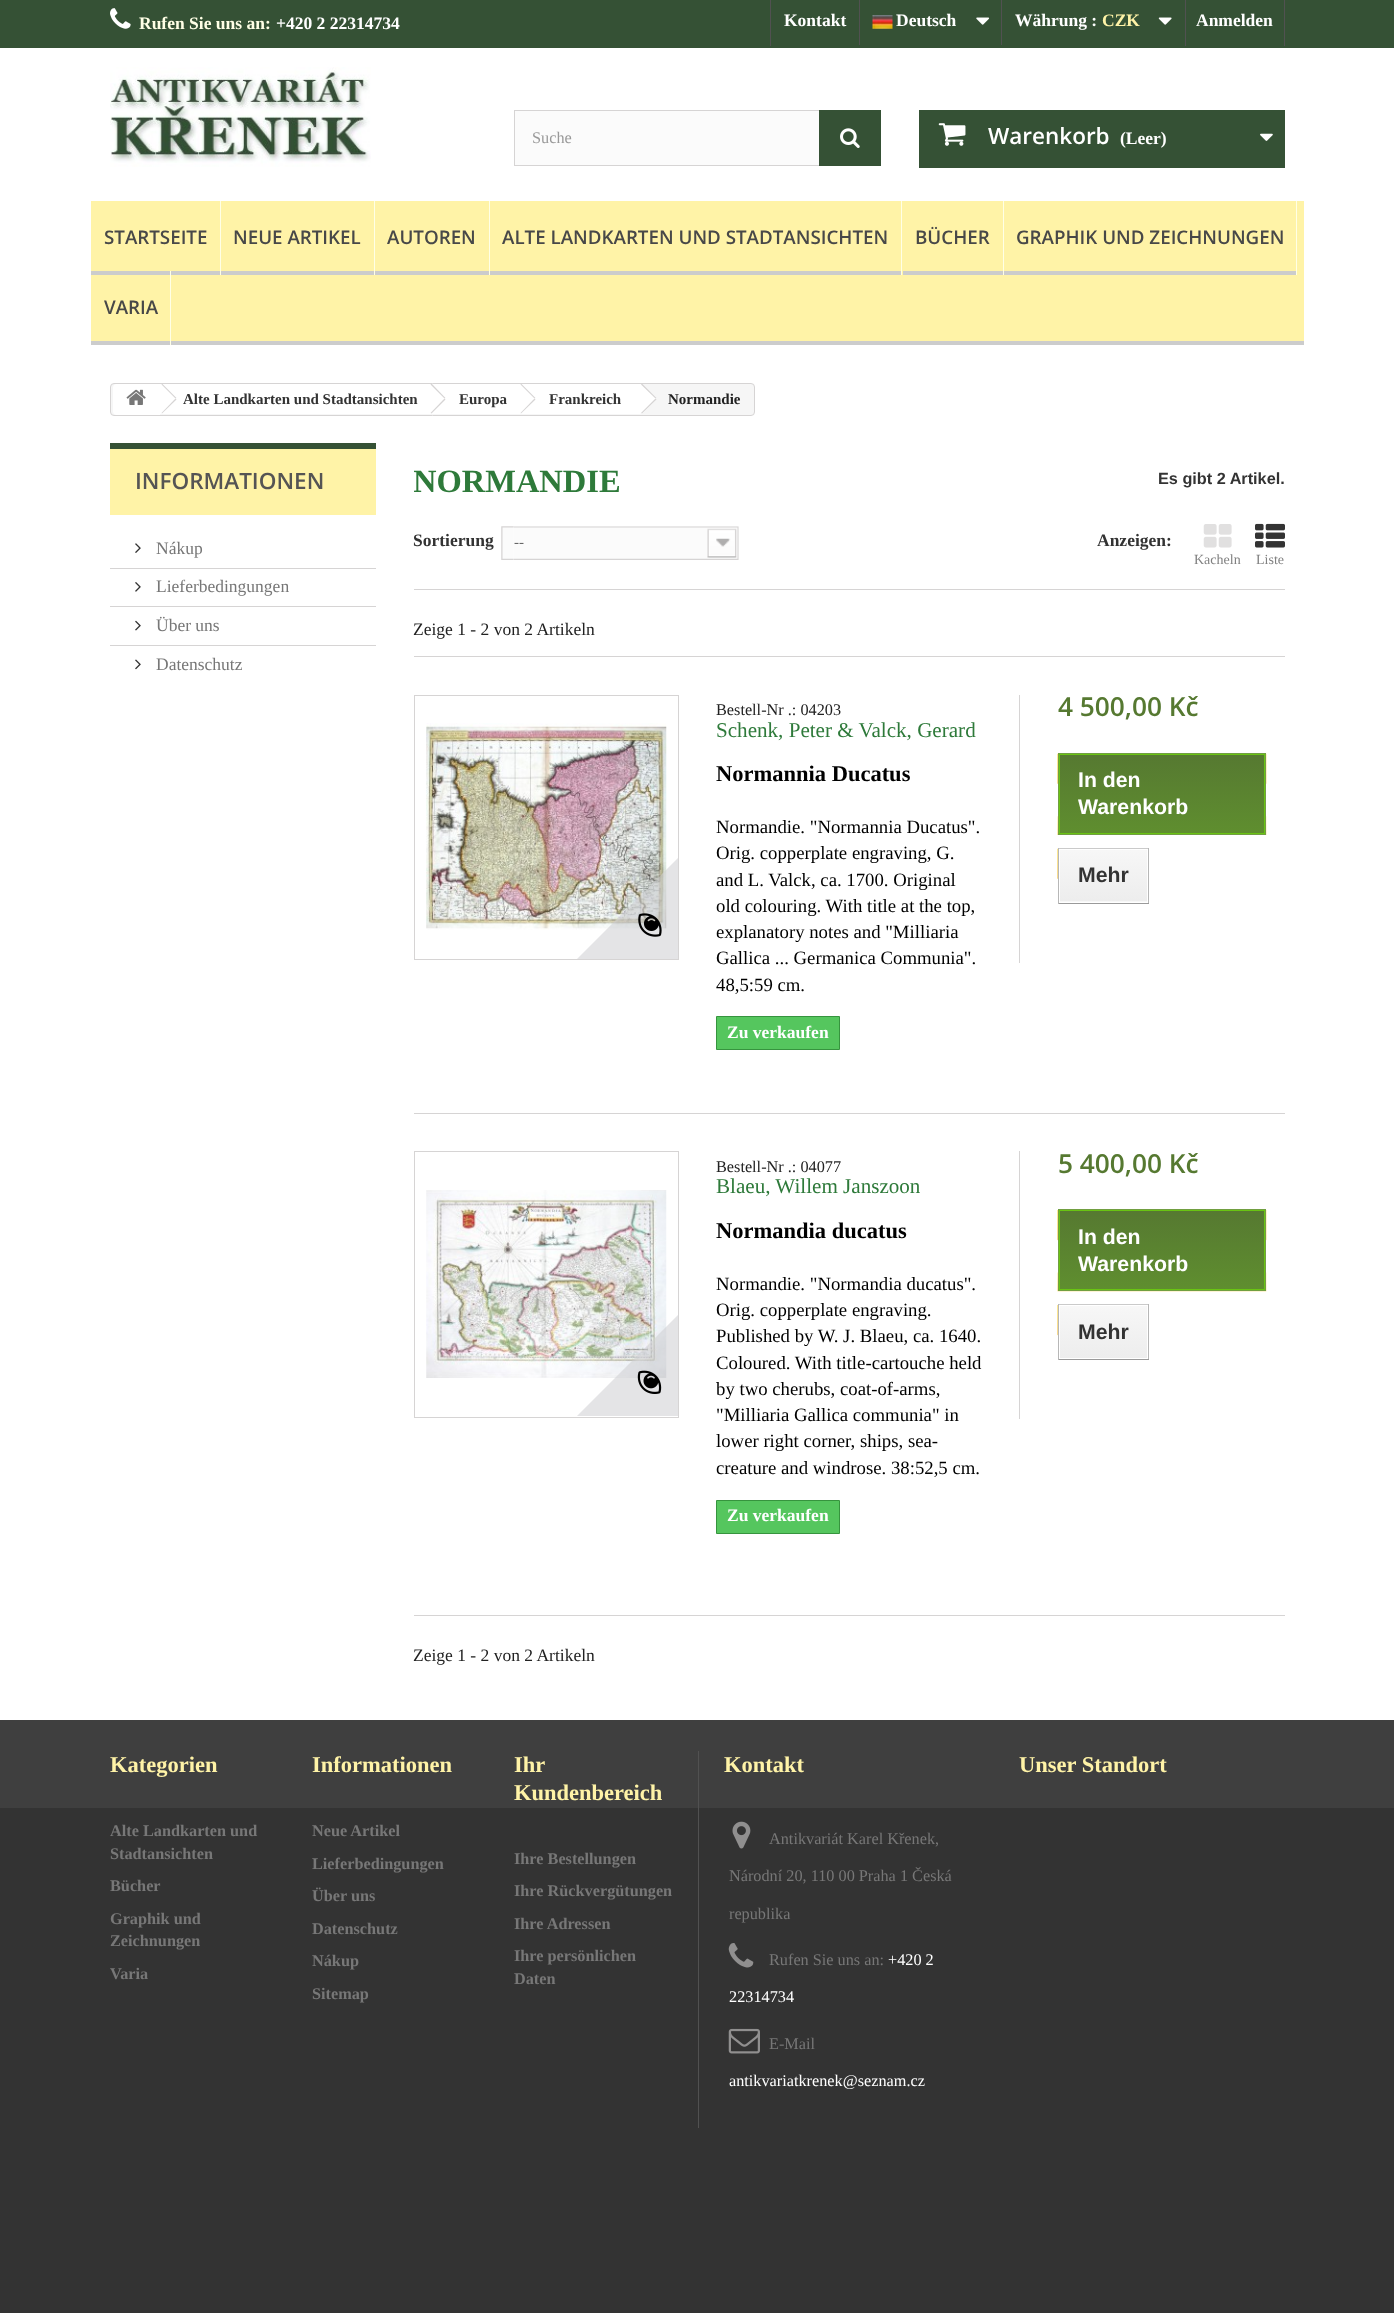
(async () => {
  const canvas = document.querySelector("canvas");
  canvas.width = 1394;
  canvas.height = 2313;
  const ctx = canvas.getContext("2d");
  ctx.miterLimit = 4;
  ctx.fontKerning = "normal";
  async function loadImage(src) {
    const img = new Image();
    img.src = src;
    await img.decode();
    return img;
  }
  let gradient, path;

  ctx.fillStyle = "#333333";
  ctx.fillRect(0, 0, 1394, 2313);
  ctx.fillStyle = "#ffffff";
  ctx.fillRect(0, 48, 1394, 1672);
  ctx.fillStyle = "#355135";
  ctx.fillRect(0, 0, 1394, 48);
  ctx.drawImage(await loadImage("img/1.png"), 110, 8, 21, 21);
  ctx.fillStyle = "#515151";
  ctx.fillRect(770, 0, 1, 46);
  ctx.fillRect(859, 0, 1, 45);
  ctx.drawImage(await loadImage("img/2.png"), 872, 15, 21, 14);
  ctx.drawImage(await loadImage("img/3.png"), 976, 17, 14, 8);
  ctx.fillRect(1001, 0, 1, 45);
  ctx.drawImage(await loadImage("img/4.png"), 1158, 17, 14, 8);
  ctx.fillRect(1284, 0, 1, 46);
  ctx.fillRect(1185, 0, 1, 46);
  ctx.drawImage(await loadImage("img/5.png"), 110, 67, 261, 100);
  ctx.fillStyle = "#fbfbfb";
  ctx.fillRect(515, 111, 304, 54);
  ctx.strokeStyle = "#d6d4d4";
  ctx.strokeRect(514.5, 110.5, 366, 55);
  ctx.fillStyle = "#355135";
  ctx.fillRect(819, 110, 62, 56);
  ctx.drawImage(await loadImage("img/6.png"), 840, 128, 20, 20);
  ctx.fillRect(919, 110, 366, 58);
  ctx.drawImage(await loadImage("img/7.png"), 938, 123, 28, 23);
  ctx.drawImage(await loadImage("img/8.png"), 1260, 133, 13, 8);
  for (const [x, y, w, h, color] of [
    [91, 201, 1213, 140, "#fff3a7"],
    [91, 341, 1213, 4, "#cccccc"],
    [220, 201, 1, 74, "#ffffe6"],
    [91, 271, 129, 4, "#cccccc"],
    [374, 201, 1, 74, "#ffffe6"],
    [221, 271, 153, 4, "#cccccc"],
    [489, 201, 1, 74, "#ffffe6"],
    [375, 271, 114, 4, "#cccccc"],
    [901, 201, 1, 74, "#ffffe6"],
    [490, 271, 411, 4, "#cccccc"],
    [1003, 201, 1, 74, "#ffffe6"],
    [903, 271, 100, 4, "#cccccc"],
    [1296, 201, 1, 74, "#ffffe6"],
    [1004, 271, 292, 4, "#cccccc"],
    [170, 271, 1, 74, "#ffffe6"],
  ]) {
    ctx.fillStyle = color;
    ctx.fillRect(x, y, w, h);
  }
  ctx.fillStyle = "#f6f6f6";
  ctx.beginPath();
  ctx.roundRect(110.5, 383.5, 644, 32, 3.5);
  ctx.fill();
  ctx.stroke();
  ctx.fillStyle = "#ffffff";
  ctx.beginPath();
  ctx.roundRect(113, 384, 47, 31, [4, 0, 0, 4]);
  ctx.fill();
  ctx.drawImage(await loadImage("img/9.png"), 126, 389, 20, 16);
  ctx.fillRect(160, 384, 271, 30);
  ctx.fillStyle = "#d6d4d4";
  path = new Path2D("M162 383.5L176.5 398L175.5 398.5L161.5 384.5Z");
  ctx.fill(path);
  path = new Path2D("M175.5 398.5L176.5 399.5L162 413.5L161.5 413Z");
  ctx.fill(path);
  ctx.fillStyle = "#ffffff";
  path = new Path2D("M439.5 384.5L439 384H436.5L436 384.5L423.5 397C422.5 398 422.5 399.5 423.5 400.5L436 413C437 414 438.5 414 439.5 413L451.5 400.5C452.5 399.5 452.5 398 451.5 397Z");
  ctx.fill(path);
  ctx.fillRect(431, 384, 90, 30);
  ctx.fillStyle = "#d6d4d4";
  path = new Path2D("M431.5 383.5L445.5 398L444.5 398.5L430.5 384.5Z");
  ctx.fill(path);
  path = new Path2D("M444.5 398.5L445.5 399.5L431.5 413.5L430.5 413Z");
  ctx.fill(path);
  ctx.fillStyle = "#ffffff";
  path = new Path2D("M529 384.5L528.5 384H526L525.5 384.5L513 397C512 398 512 399.5 513 400.5L525.5 413C526.5 414 528 414 529 413L541.5 400.5C542.5 399.5 542.5 398 541.5 397Z");
  ctx.fill(path);
  ctx.fillRect(521, 384, 119, 30);
  ctx.fillStyle = "#d6d4d4";
  path = new Path2D("M521 383.5L535.5 398L534.5 398.5L520.5 384.5Z");
  ctx.fill(path);
  path = new Path2D("M534.5 398.5L535.5 399.5L521 413.5L520.5 413Z");
  ctx.fill(path);
  ctx.fillStyle = "#ffffff";
  path = new Path2D("M643 384.5L642.5 384H640L639.5 384.5L627 397C626 398 626 399.5 627 400.5L639.5 413C640.5 414 642 414 643 413L655.5 400.5C656.5 399.5 656.5 398 655.5 397Z");
  ctx.fill(path);
  ctx.fillStyle = "#d6d4d4";
  path = new Path2D("M642 383.5L656.5 398L655.5 398.5L641 384.5Z");
  ctx.fill(path);
  path = new Path2D("M655.5 398.5L656.5 399.5L642 413.5L641 413Z");
  ctx.fill(path);
  ctx.fillStyle = "#fff3a7";
  ctx.fillRect(110, 449, 266, 66);
  ctx.fillStyle = "#355135";
  ctx.fillRect(110, 443, 266, 6);
  ctx.drawImage(await loadImage("img/10.png"), 135, 543, 6, 10);
  ctx.fillStyle = "#d6d4d4";
  ctx.fillRect(110, 568, 266, 1);
  ctx.drawImage(await loadImage("img/11.png"), 135, 582, 6, 10);
  ctx.fillRect(110, 606, 266, 1);
  ctx.drawImage(await loadImage("img/12.png"), 135, 620, 6, 11);
  ctx.fillRect(110, 645, 266, 1);
  ctx.drawImage(await loadImage("img/13.png"), 135, 659, 6, 11);
  ctx.fillRect(414, 589, 871, 1);
  ctx.drawImage(await loadImage("img/14.png"), 501, 526, 13, 34);
  ctx.drawImage(await loadImage("img/15.png"), 514, 526, 225, 34);
  ctx.drawImage(await loadImage("img/16.png"), 1203, 524, 29, 24);
  ctx.drawImage(await loadImage("img/17.png"), 1255, 523, 30, 25);
  ctx.fillRect(414, 656, 871, 1);
  ctx.strokeRect(414.5, 695.5, 264, 264);
  ctx.drawImage(await loadImage("img/18.png"), 426, 723, 241, 207);
  ctx.save();
  ctx.beginPath();
  ctx.rect(409, 765, 269, 194);
  ctx.clip();
  ctx.fillStyle = "rgba(208, 208, 211, 0.57)";
  path = new Path2D("M684 852L759 927L644 1042L569 967Z");
  ctx.fill(path);
  ctx.restore();
  ctx.drawImage(await loadImage("img/19.png"), 638, 913, 24, 24);
  ctx.fillStyle = "#55c65e";
  ctx.beginPath();
  ctx.rect(716.5, 1016.5, 123, 33);
  ctx.fill();
  ctx.strokeStyle = "#36943e";
  ctx.stroke();
  ctx.fillStyle = "#d6d4d4";
  ctx.fillRect(1019, 695, 1, 268);
  ctx.drawImage(await loadImage("img/20.png"), 1057, 753, 210, 82);
  ctx.strokeStyle = "#719f41";
  ctx.strokeRect(1058.5, 753.5, 207, 81);
  gradient = ctx.createLinearGradient(1162, 755, 1162, 833);
  gradient.addColorStop(0, "#567931");
  gradient.addColorStop(1, "#5f8e2f");
  ctx.fillStyle = gradient;
  ctx.fillRect(1060, 755, 204, 78);
  ctx.strokeStyle = "#69c412";
  ctx.strokeRect(1059.5, 754.5, 205, 79);
  ctx.drawImage(await loadImage("img/21.png"), 1057, 848, 1, 31);
  for (const [x, y, w, h, color] of [
    [1058, 848, 91, 1, "#cacaca"],
    [1148, 848, 1, 56, "#b7b7b7"],
    [1058, 903, 91, 1, "#9a9a9a"],
    [1058, 848, 1, 56, "#b7b7b7"],
    [1060, 901, 87, 1, "#f7f7f7"],
  ]) {
    ctx.fillStyle = color;
    ctx.fillRect(x, y, w, h);
  }
  gradient = ctx.createLinearGradient(1103, 850, 1103, 901);
  gradient.addColorStop(0, "#f7f7f7");
  gradient.addColorStop(1, "#ededed");
  ctx.fillStyle = gradient;
  ctx.fillRect(1060, 850, 87, 51);
  ctx.fillStyle = "#d6d4d4";
  ctx.fillRect(414, 1113, 871, 1);
  ctx.strokeStyle = "#d6d4d4";
  ctx.strokeRect(414.5, 1151.5, 264, 266);
  ctx.drawImage(await loadImage("img/22.png"), 426, 1190, 241, 188);
  ctx.save();
  ctx.beginPath();
  ctx.rect(409, 1223, 269, 193);
  ctx.clip();
  ctx.fillStyle = "rgba(208, 208, 211, 0.57)";
  path = new Path2D("M684 1309L759 1384L644 1499L569 1424Z");
  ctx.fill(path);
  ctx.restore();
  ctx.drawImage(await loadImage("img/23.png"), 637, 1370, 25, 24);
  ctx.fillStyle = "#55c65e";
  ctx.beginPath();
  ctx.rect(716.5, 1500.5, 123, 33);
  ctx.fill();
  ctx.strokeStyle = "#36943e";
  ctx.stroke();
  ctx.fillStyle = "#d6d4d4";
  ctx.fillRect(1019, 1151, 1, 268);
  ctx.drawImage(await loadImage("img/24.png"), 1057, 1210, 210, 82);
  ctx.strokeStyle = "#719f41";
  ctx.strokeRect(1058.5, 1209.5, 207, 81);
  gradient = ctx.createLinearGradient(1162, 1211, 1162, 1289);
  gradient.addColorStop(0, "#567931");
  gradient.addColorStop(1, "#5f8e2f");
  ctx.fillStyle = gradient;
  ctx.fillRect(1060, 1211, 204, 78);
  ctx.strokeStyle = "#69c412";
  ctx.strokeRect(1059.5, 1210.5, 205, 79);
  ctx.drawImage(await loadImage("img/25.png"), 1057, 1305, 1, 31);
  for (const [x, y, w, h, color] of [
    [1058, 1304, 91, 1, "#cacaca"],
    [1148, 1304, 1, 56, "#b7b7b7"],
    [1058, 1359, 91, 1, "#9a9a9a"],
    [1058, 1304, 1, 56, "#b7b7b7"],
  ]) {
    ctx.fillStyle = color;
    ctx.fillRect(x, y, w, h);
  }
  gradient = ctx.createLinearGradient(1103, 1306, 1103, 1358);
  gradient.addColorStop(0, "#f7f7f7");
  gradient.addColorStop(1, "#ededed");
  ctx.fillStyle = gradient;
  ctx.fillRect(1060, 1306, 87, 52);
  for (const [x, y, w, h, color] of [
    [414, 1615, 871, 1, "#d6d4d4"],
    [0, 1720, 1394, 88, "#3f3f3f"],
    [698, 1751, 1, 377, "#515151"],
  ]) {
    ctx.fillStyle = color;
    ctx.fillRect(x, y, w, h);
  }
  ctx.drawImage(await loadImage("img/26.png"), 732, 1821, 19, 28);
  ctx.drawImage(await loadImage("img/27.png"), 728, 1943, 26, 25);
  ctx.drawImage(await loadImage("img/28.png"), 728, 2028, 32, 26);
  ctx.font = "bold 17.5px Liberation Serif";
  ctx.fillStyle = "#ffffe6";
  ctx.fillText("Rufen Sie uns an:", 139, 29);
  ctx.fillStyle = "#ffffff";
  for (const [text, x, y] of [
    ["+420 2 22314734", 276, 29],
    ["Kontakt", 784, 26],
    ["Deutsch", 896, 26],
    ["Währung :", 1015, 26],
  ]) {
    ctx.fillText(text, x, y);
  }
  ctx.fillStyle = "#fff3a7";
  ctx.fillText("CZK", 1102, 26);
  ctx.fillStyle = "#ffffff";
  ctx.fillText("Anmelden", 1196, 26);
  ctx.font = "16.25px Liberation Serif";
  ctx.fillStyle = "#999999";
  ctx.fillText("Suche", 532, 143);
  ctx.font = "600 22.5px Open Sans";
  ctx.fillStyle = "#ffffff";
  ctx.fillText("Warenkorb", 988, 144);
  ctx.font = "bold 17.5px Liberation Serif";
  ctx.fillText("(Leer)", 1120, 144);
  ctx.font = "600 18.75px Open Sans";
  ctx.fillStyle = "#484848";
  for (const [text, x, y] of [
    ["STARTSEITE", 104, 244],
    ["NEUE ARTIKEL", 233, 244],
    ["AUTOREN", 387, 244],
    ["ALTE LANDKARTEN UND STADTANSICHTEN", 502, 244],
    ["BÜCHER", 915, 244],
    ["GRAPHIK UND ZEICHNUNGEN", 1016, 244],
    ["VARIA", 104, 314],
  ]) {
    ctx.fillText(text, x, y);
  }
  ctx.font = "bold 15px Liberation Serif";
  ctx.fillStyle = "#333333";
  for (const [text, x, y] of [
    ["Alte Landkarten und Stadtansichten", 183, 404],
    ["Europa", 459, 404],
    ["Frankreich", 549, 404],
  ]) {
    ctx.fillText(text, x, y);
  }
  ctx.fillStyle = "#222222";
  ctx.fillText("Normandie", 668, 404);
  ctx.font = "600 22.5px Open Sans";
  ctx.fillStyle = "#555454";
  ctx.fillText("INFORMATIONEN", 135, 489);
  ctx.font = "17.5px Liberation Serif";
  ctx.fillStyle = "#777777";
  for (const [text, x, y] of [
    ["Nákup", 156, 554],
    ["Lieferbedingungen", 156, 592],
    ["Über uns", 156, 631],
    ["Datenschutz", 156, 670],
  ]) {
    ctx.fillText(text, x, y);
  }
  ctx.save();
  ctx.beginPath();
  ctx.rect(414, 465, 871, 61);
  ctx.clip();
  ctx.font = "bold 32.5px Liberation Serif";
  ctx.fillStyle = "#2e7a3a";
  ctx.fillText("NORMANDIE", 413, 492);
  ctx.restore();
  ctx.font = "bold 16.25px Liberation Sans";
  ctx.fillStyle = "#333333";
  ctx.fillText("Es gibt 2 Artikel.", 1158, 484);
  ctx.font = "bold 17.5px Liberation Serif";
  ctx.fillText("Sortierung", 413, 546);
  ctx.font = "15px Liberation Serif";
  ctx.fillStyle = "#666666";
  ctx.fillText("--", 514, 547);
  ctx.font = "bold 17.5px Liberation Serif";
  ctx.fillStyle = "#333333";
  ctx.fillText("Anzeigen:", 1097, 546);
  ctx.font = "14px Liberation Serif";
  ctx.fillStyle = "#808080";
  ctx.fillText("Kacheln", 1194, 564);
  ctx.fillText("Liste", 1256, 564);
  ctx.font = "17.5px Liberation Serif";
  ctx.fillStyle = "#222222";
  ctx.fillText("Zeige 1 - 2 von 2 Artikeln", 413, 635);
  ctx.font = "16.25px Liberation Serif";
  ctx.fillText("Bestell-Nr .: 04203", 716, 715);
  ctx.font = "21.1px Liberation Serif";
  ctx.fillStyle = "#2e7a3a";
  ctx.fillText("Schenk, Peter & Valck, Gerard", 716, 737);
  ctx.font = "bold 22.5px Liberation Serif";
  ctx.fillStyle = "#000000";
  ctx.fillText("Normannia Ducatus", 716, 781);
  ctx.font = "18.75px Liberation Serif";
  for (const [text, x, y] of [
    ["Normandie. \"Normannia Ducatus\".", 716, 833],
    ["Orig. copperplate engraving, G.", 716, 859],
    ["and L. Valck, ca. 1700. Original", 716, 886],
    ["old colouring. With title at the top,", 716, 912],
    ["explanatory notes and \"Milliaria", 716, 938],
    ["Gallica ... Germanica Communia\".", 716, 964],
    ["48,5:59 cm.", 716, 991],
  ]) {
    ctx.fillText(text, x, y);
  }
  ctx.font = "bold 17.5px Liberation Serif";
  ctx.fillStyle = "#ffffff";
  ctx.fillText("Zu verkaufen", 727, 1038);
  ctx.font = "600 26.25px Open Sans";
  ctx.fillStyle = "#567931";
  ctx.fillText("4 500,00 Kč", 1058, 716);
  ctx.font = "bold 21.25px Liberation Sans";
  ctx.fillStyle = "#ffffff";
  ctx.fillText("In den", 1078, 787);
  ctx.fillText("Warenkorb", 1078, 814);
  ctx.fillStyle = "#333333";
  ctx.fillText("Mehr", 1078, 882);
  ctx.font = "16.25px Liberation Serif";
  ctx.fillStyle = "#222222";
  ctx.fillText("Bestell-Nr .: 04077", 716, 1172);
  ctx.font = "21.1px Liberation Serif";
  ctx.fillStyle = "#2e7a3a";
  ctx.fillText("Blaeu, Willem Janszoon", 716, 1193);
  ctx.font = "bold 22.5px Liberation Serif";
  ctx.fillStyle = "#000000";
  ctx.fillText("Normandia ducatus", 716, 1238);
  ctx.font = "18.75px Liberation Serif";
  for (const [text, x, y] of [
    ["Normandie. \"Normandia ducatus\".", 716, 1290],
    ["Orig. copperplate engraving.", 716, 1316],
    ["Published by W. J. Blaeu, ca. 1640.", 716, 1342],
    ["Coloured. With title-cartouche held", 716, 1369],
    ["by two cherubs, coat-of-arms,", 716, 1395],
    ["\"Milliaria Gallica communia\" in", 716, 1421],
    ["lower right corner, ships, sea-", 716, 1447],
    ["creature and windrose. 38:52,5 cm.", 716, 1474],
  ]) {
    ctx.fillText(text, x, y);
  }
  ctx.font = "bold 17.5px Liberation Serif";
  ctx.fillStyle = "#ffffff";
  ctx.fillText("Zu verkaufen", 727, 1521);
  ctx.font = "600 26.25px Open Sans";
  ctx.fillStyle = "#567931";
  ctx.fillText("5 400,00 Kč", 1058, 1173);
  ctx.font = "bold 21.25px Liberation Sans";
  ctx.fillStyle = "#ffffff";
  ctx.fillText("In den", 1078, 1244);
  ctx.fillText("Warenkorb", 1078, 1271);
  ctx.fillStyle = "#333333";
  ctx.fillText("Mehr", 1078, 1339);
  ctx.font = "17.5px Liberation Serif";
  ctx.fillStyle = "#222222";
  ctx.fillText("Zeige 1 - 2 von 2 Artikeln", 413, 1661);
  ctx.font = "bold 22.5px Liberation Serif";
  ctx.fillStyle = "#fff3a7";
  ctx.fillText("Kategorien", 110, 1772);
  ctx.font = "bold 16.25px Liberation Serif";
  ctx.fillStyle = "#777777";
  for (const [text, x, y] of [
    ["Alte Landkarten und", 110, 1836],
    ["Stadtansichten", 110, 1859],
    ["Bücher", 110, 1891],
    ["Graphik und", 110, 1924],
    ["Zeichnungen", 110, 1946],
    ["Varia", 110, 1979],
  ]) {
    ctx.fillText(text, x, y);
  }
  ctx.font = "bold 22.5px Liberation Serif";
  ctx.fillStyle = "#fff3a7";
  ctx.fillText("Informationen", 312, 1772);
  ctx.font = "bold 16.25px Liberation Serif";
  ctx.fillStyle = "#777777";
  for (const [text, x, y] of [
    ["Neue Artikel", 312, 1836],
    ["Lieferbedingungen", 312, 1869],
    ["Über uns", 312, 1901],
    ["Datenschutz", 312, 1934],
    ["Nákup", 312, 1966],
    ["Sitemap", 312, 1999],
  ]) {
    ctx.fillText(text, x, y);
  }
  ctx.font = "bold 22.5px Liberation Serif";
  ctx.fillStyle = "#fff3a7";
  ctx.fillText("Ihr", 514, 1772);
  ctx.fillText("Kundenbereich", 514, 1800);
  ctx.font = "bold 16.25px Liberation Serif";
  ctx.fillStyle = "#777777";
  for (const [text, x, y] of [
    ["Ihre Bestellungen", 514, 1864],
    ["Ihre Rückvergütungen", 514, 1896],
    ["Ihre Adressen", 514, 1929],
    ["Ihre persönlichen", 514, 1961],
    ["Daten", 514, 1984],
  ]) {
    ctx.fillText(text, x, y);
  }
  ctx.font = "bold 22.5px Liberation Serif";
  ctx.fillStyle = "#fff3a7";
  ctx.fillText("Kontakt", 724, 1772);
  ctx.font = "16.25px Liberation Serif";
  ctx.fillStyle = "#777777";
  for (const [text, x, y] of [
    ["Antikvariát Karel Křenek,", 769, 1844],
    ["Národní 20, 110 00 Praha 1 Česká", 729, 1881],
    ["republika", 729, 1919],
    ["Rufen Sie uns an:", 769, 1965],
  ]) {
    ctx.fillText(text, x, y);
  }
  ctx.fillStyle = "#ffffff";
  ctx.fillText("+420 2", 888, 1965);
  ctx.fillText("22314734", 729, 2002);
  ctx.fillStyle = "#777777";
  ctx.fillText("E-Mail", 769, 2049);
  ctx.fillStyle = "#ffffff";
  ctx.fillText("antikvariatkrenek@seznam.cz", 729, 2086);
  ctx.font = "bold 22.5px Liberation Serif";
  ctx.fillStyle = "#fff3a7";
  ctx.fillText("Unser Standort", 1019, 1772);
})();
